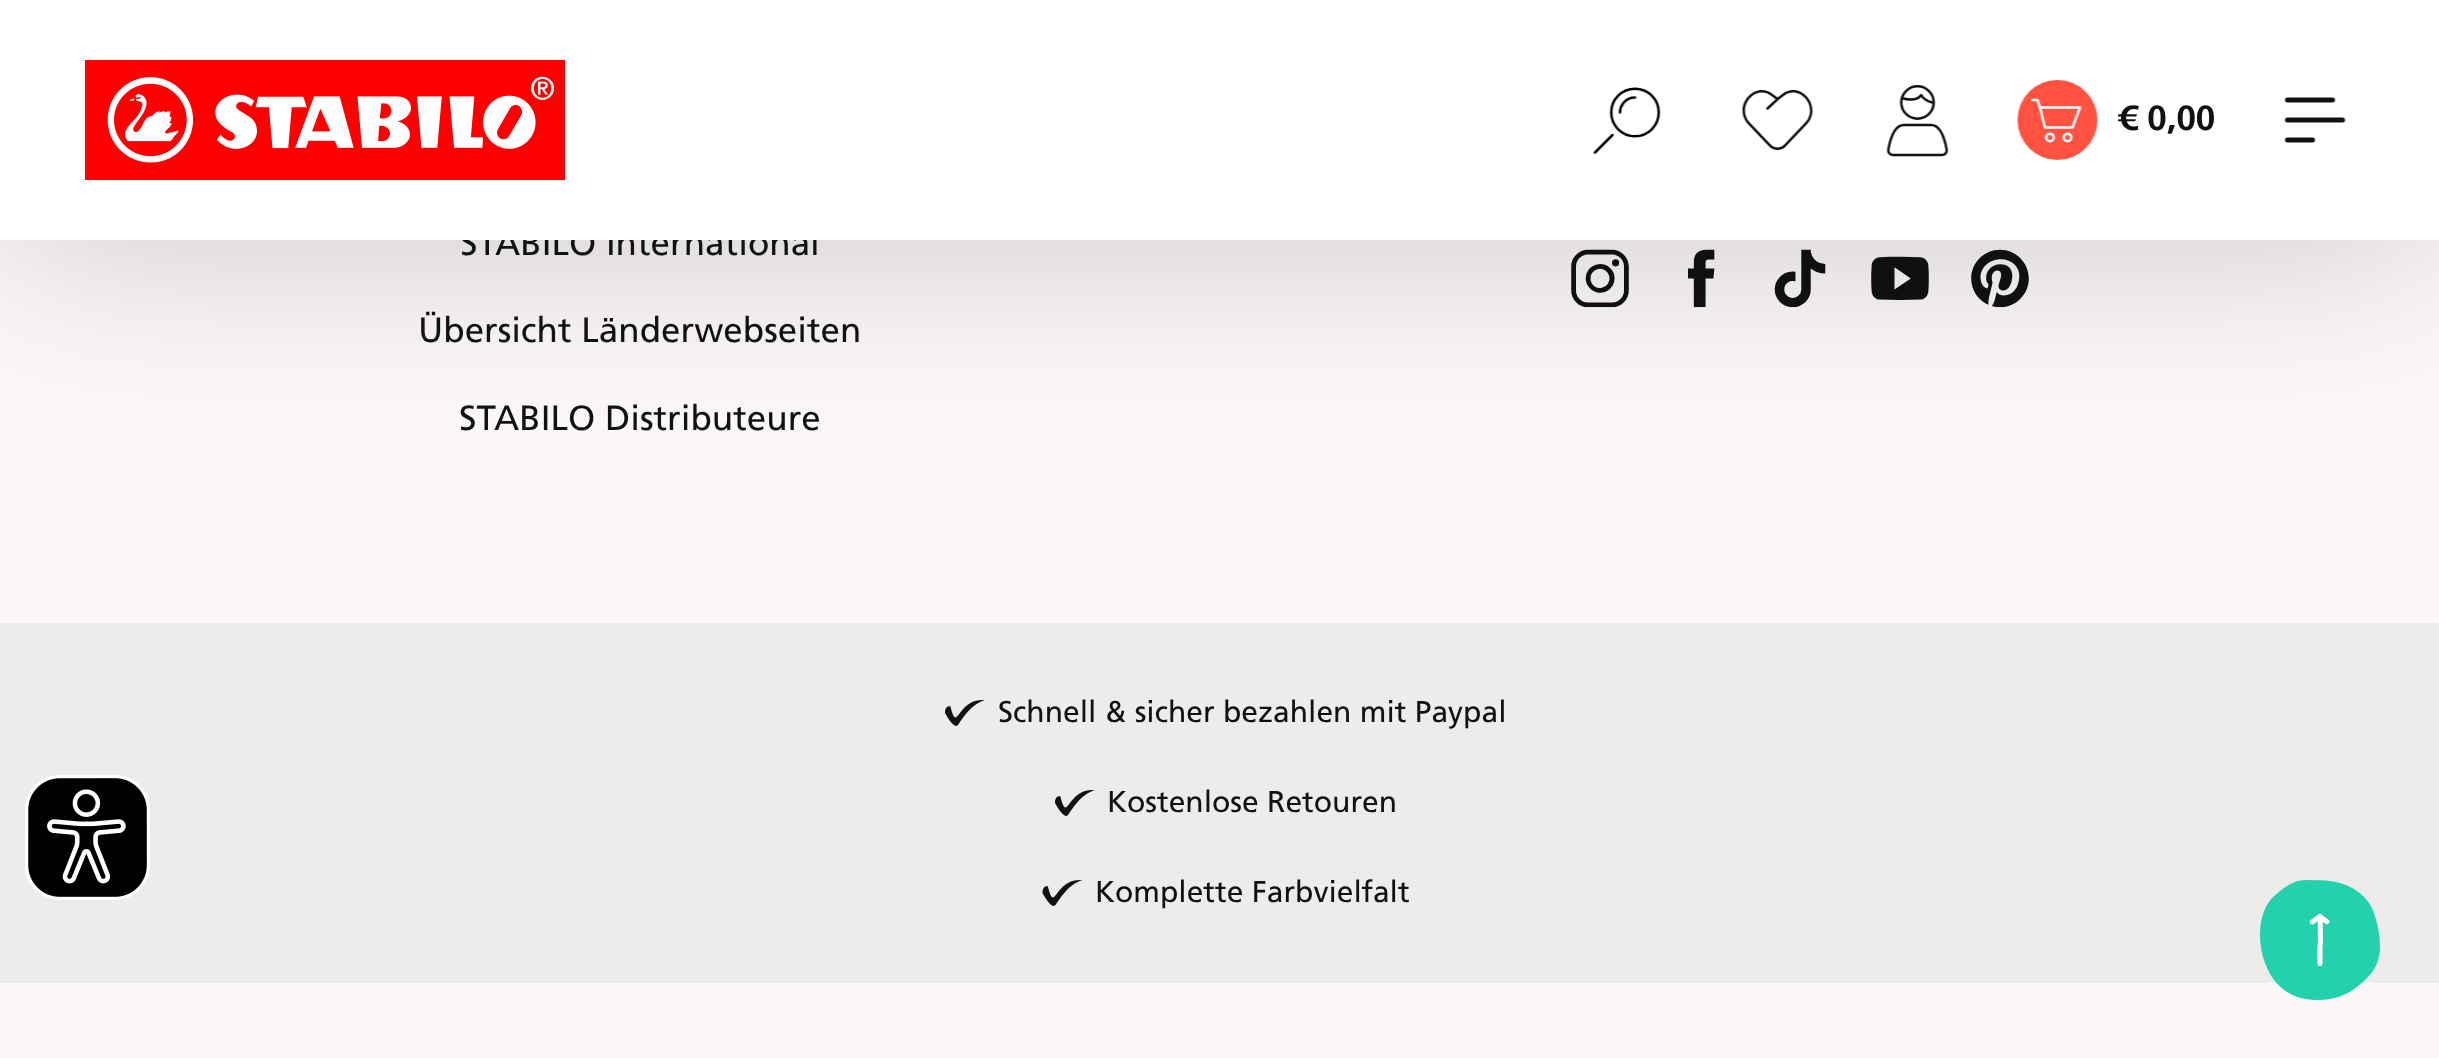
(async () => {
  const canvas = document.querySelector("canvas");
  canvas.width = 2439;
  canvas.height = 1058;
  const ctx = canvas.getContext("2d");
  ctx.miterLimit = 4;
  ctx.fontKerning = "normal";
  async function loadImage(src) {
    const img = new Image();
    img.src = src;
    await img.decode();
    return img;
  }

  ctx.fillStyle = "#fbf8f7";
  ctx.fillRect(0, 0, 2439, 1058);
  ctx.drawImage(await loadImage("img/8.png"), 1571, 249, 58, 59);
  ctx.drawImage(await loadImage("img/9.png"), 1688, 249, 27, 59);
  ctx.drawImage(await loadImage("img/10.png"), 1774, 249, 52, 59);
  ctx.drawImage(await loadImage("img/11.png"), 1871, 256, 58, 44);
  ctx.drawImage(await loadImage("img/12.png"), 1971, 249, 58, 59);
  ctx.fillStyle = "rgba(0, 0, 0, 0.2)";
  ctx.filter = "blur(100px)";
  ctx.beginPath();
  ctx.rect(0, 0, 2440, 240);
  ctx.fill();
  ctx.filter = "none";
  ctx.fillStyle = "#edecea";
  ctx.fillRect(0, 623, 2439, 360);
  ctx.drawImage(await loadImage("img/7.png"), 25, 775, 125, 125);
  ctx.drawImage(await loadImage("img/13.png"), 945, 700, 40, 26);
  ctx.drawImage(await loadImage("img/13.png"), 1055, 790, 40, 26);
  ctx.drawImage(await loadImage("img/14.png"), 1042, 880, 41, 26);
  ctx.drawImage(await loadImage("img/15.png"), 2260, 880, 120, 120);
  ctx.font = "35px Frutiger";
  ctx.fillStyle = "#111212";
  ctx.fillText("STABILO International", 460, 255);
  ctx.fillStyle = "#ffffff";
  ctx.fillRect(0, 0, 2439, 240);
  ctx.drawImage(await loadImage("img/6.png"), 2284, 97, 62, 46);
  ctx.drawImage(await loadImage("img/5.png"), 2017, 80, 81, 80);
  ctx.font = "bold 35px Frutiger";
  ctx.fillStyle = "#111212";
  ctx.fillText("€ 0,00", 2118, 130);
  ctx.drawImage(await loadImage("img/4.png"), 1886, 85, 63, 72);
  ctx.drawImage(await loadImage("img/3.png"), 1742, 90, 71, 60);
  ctx.drawImage(await loadImage("img/2.png"), 1593, 87, 68, 67);
  ctx.drawImage(await loadImage("img/1.png"), 85, 60, 480, 120);
  ctx.font = "35px Frutiger";
  ctx.fillText("Übersicht Länderwebseiten", 418, 342);
  ctx.fillText("STABILO Distributeure", 459, 430);
  ctx.font = "30px Frutiger";
  for (const [text, x, y] of [
    ["Schnell & sicher bezahlen mit Paypal", 998, 722],
    ["Kostenlose Retouren", 1107, 812],
    ["Komplette Farbvielfalt", 1095, 902],
  ]) {
    ctx.fillText(text, x, y);
  }
})();
